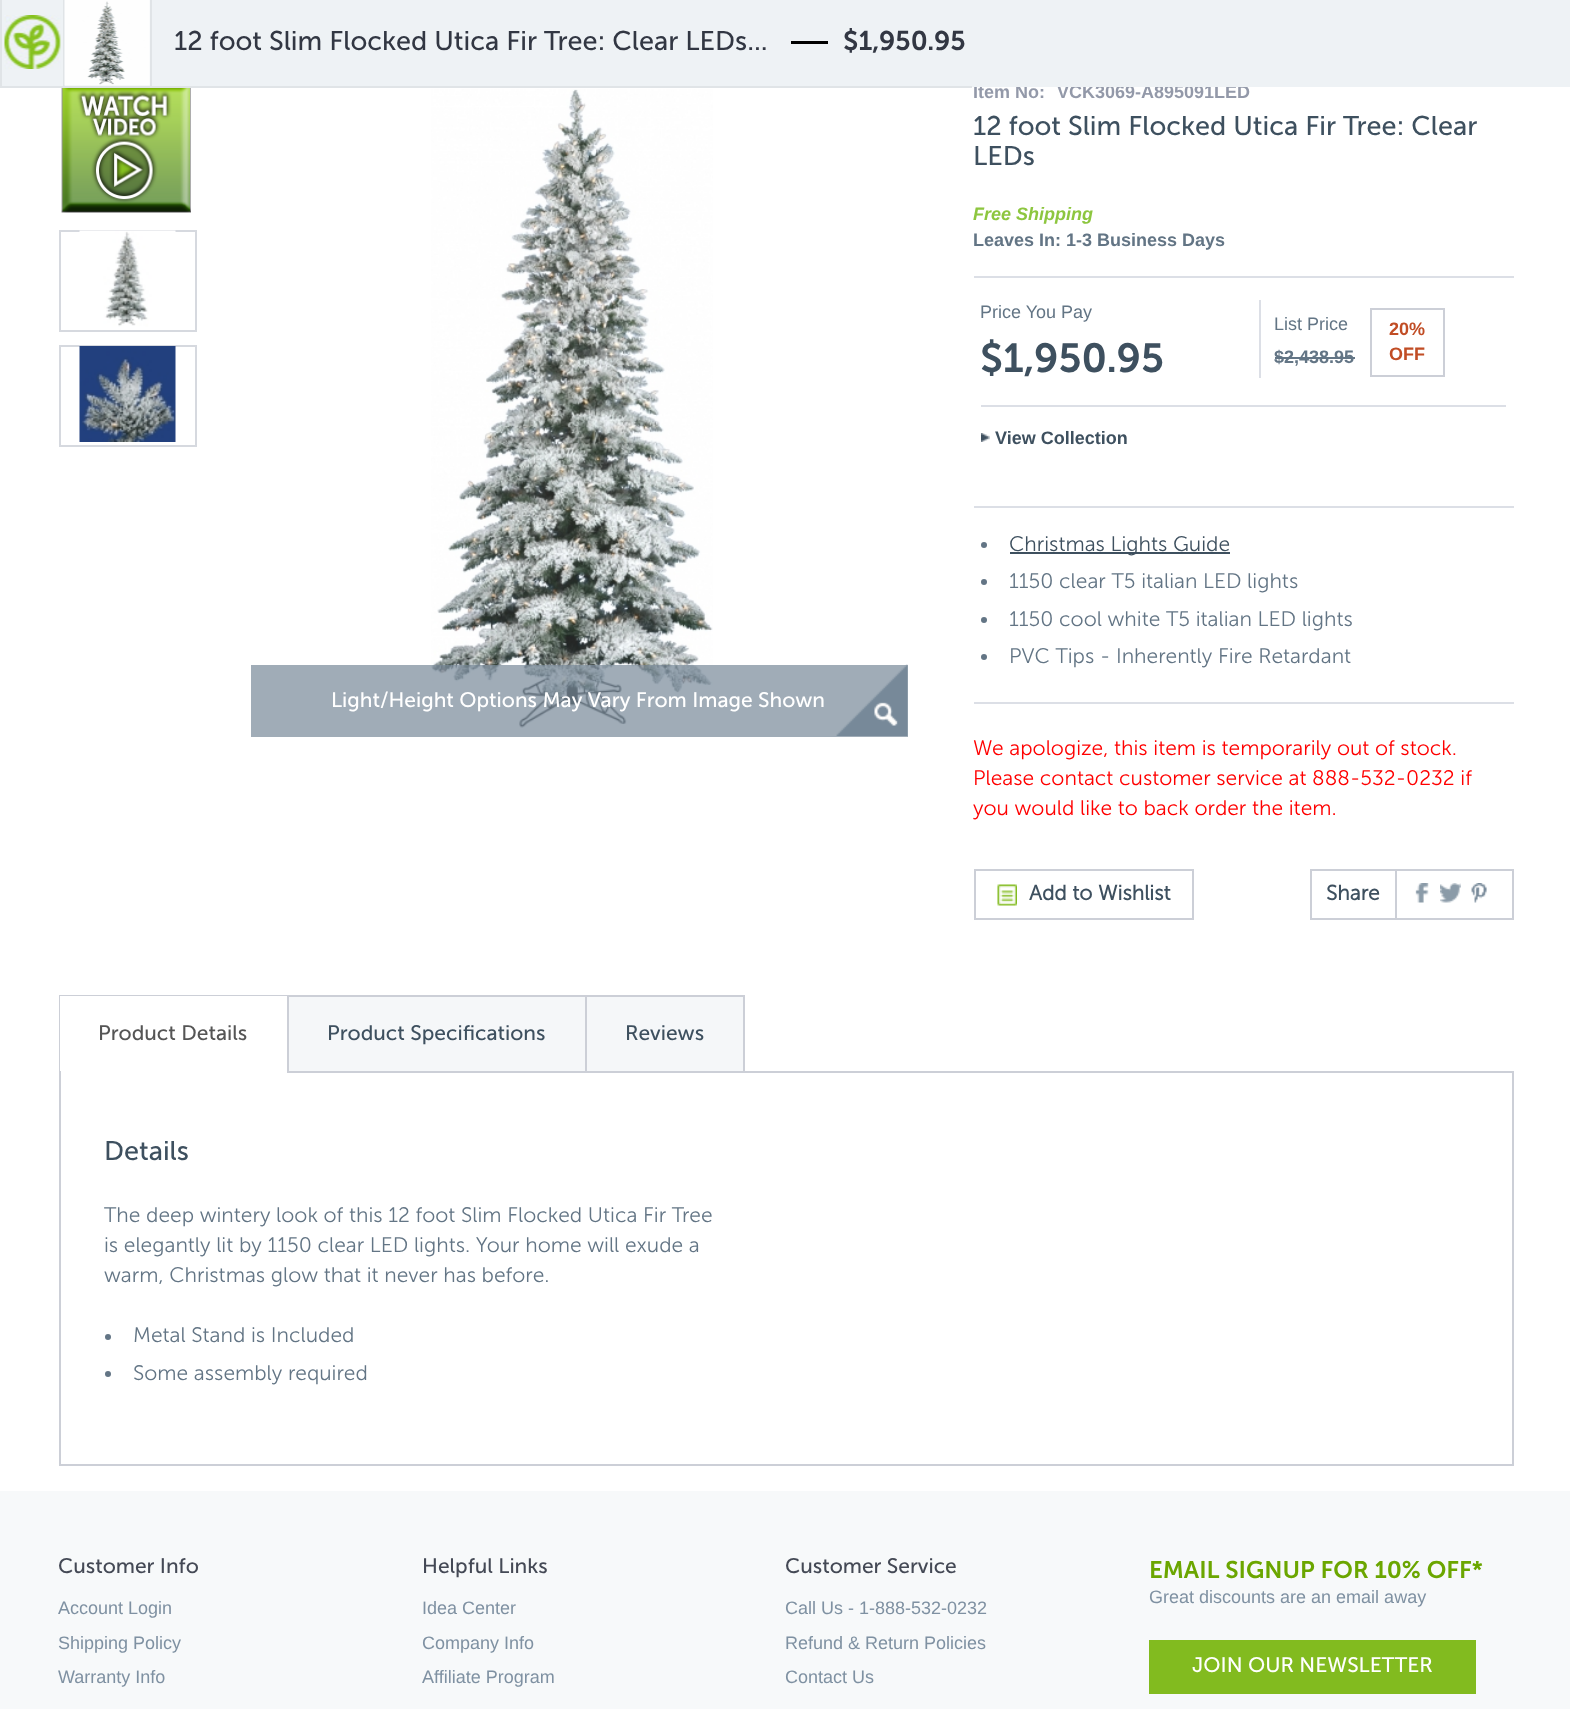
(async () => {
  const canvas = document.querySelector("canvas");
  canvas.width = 1570;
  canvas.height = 1709;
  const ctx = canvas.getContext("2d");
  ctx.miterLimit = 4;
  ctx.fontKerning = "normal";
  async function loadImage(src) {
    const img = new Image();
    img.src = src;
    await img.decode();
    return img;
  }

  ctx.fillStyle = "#ffffff";
  ctx.fillRect(0, 0, 1570, 1709);
  ctx.drawImage(await loadImage("img/3.png"), 61, 88, 130, 125);
  ctx.strokeStyle = "#d6d9df";
  ctx.lineWidth = 2;
  ctx.strokeRect(60, 231, 136, 100);
  ctx.drawImage(await loadImage("img/4.png"), 79, 230, 97, 97);
  ctx.strokeRect(60, 346, 136, 100);
  ctx.drawImage(await loadImage("img/5.png"), 79, 346, 97, 96);
  ctx.drawImage(await loadImage("img/6.png"), 431, 89, 282, 639);
  ctx.fillStyle = "rgba(119, 137, 153, 0.7)";
  ctx.fillRect(251, 665, 657, 72);
  ctx.drawImage(await loadImage("img/7.png"), 836, 664, 72, 72);
  for (const [x, y, w, h, color] of [
    [974, 276, 540, 2, "#dcdfe6"],
    [974, 506, 540, 2, "#dcdfe6"],
    [1259, 300, 2, 78, "#dcdfe6"],
    [1275, 357, 80, 2, "#637585"],
  ]) {
    ctx.fillStyle = color;
    ctx.fillRect(x, y, w, h);
  }
  ctx.strokeStyle = "#cccfd7";
  ctx.strokeRect(1371, 309, 73, 67);
  ctx.fillStyle = "#dcdfe6";
  ctx.fillRect(981, 405, 525, 2);
  ctx.drawImage(await loadImage("img/8.png"), 981, 433, 9, 9);
  ctx.fillRect(974, 702, 540, 2);
  ctx.fillStyle = "#637585";
  ctx.beginPath();
  ctx.arc(984, 545, 3, 0, Math.PI * 2);
  ctx.fill();
  ctx.fillStyle = "#3e505f";
  ctx.fillRect(1010, 552, 220, 2);
  ctx.fillStyle = "#637585";
  ctx.beginPath();
  ctx.arc(984, 582, 3, 0, Math.PI * 2);
  ctx.fill();
  ctx.beginPath();
  ctx.arc(984, 620, 3, 0, Math.PI * 2);
  ctx.fill();
  ctx.beginPath();
  ctx.arc(984, 657, 3, 0, Math.PI * 2);
  ctx.fill();
  ctx.strokeRect(975, 870, 218, 49);
  ctx.drawImage(await loadImage("img/9.png"), 997, 884, 20, 22);
  ctx.strokeRect(1311, 870, 85, 49);
  for (const [x, y, w, h, color] of [
    [1397, 869, 117, 2, "#cccfd7"],
    [1512, 869, 2, 51, "#cccfd7"],
    [1397, 918, 117, 2, "#cccfd7"],
  ]) {
    ctx.fillStyle = color;
    ctx.fillRect(x, y, w, h);
  }
  ctx.drawImage(await loadImage("img/10.png"), 1415, 883, 14, 20);
  ctx.drawImage(await loadImage("img/11.png"), 1440, 883, 21, 20);
  ctx.drawImage(await loadImage("img/12.png"), 1471, 883, 16, 20);
  ctx.fillRect(59, 995, 228, 1);
  ctx.strokeRect(60, 1072, 1453, 393);
  for (const [x, y, w, h, color] of [
    [59, 1071, 228, 2, "#ffffff"],
    [59, 995, 2, 78, "#cccfd7"],
    [60, 996, 1, 75, "#ffffff"],
    [289, 997, 296, 74, "#f5f7f9"],
    [287, 995, 457, 2, "#cccfd7"],
    [287, 995, 2, 76, "#cccfd7"],
    [587, 997, 156, 74, "#f5f7f9"],
    [743, 995, 2, 76, "#cccfd7"],
    [585, 995, 2, 76, "#cccfd7"],
  ]) {
    ctx.fillStyle = color;
    ctx.fillRect(x, y, w, h);
  }
  ctx.fillStyle = "#637585";
  ctx.beginPath();
  ctx.arc(108, 1337, 3, 0, Math.PI * 2);
  ctx.fill();
  ctx.beginPath();
  ctx.arc(108, 1374, 3, 0, Math.PI * 2);
  ctx.fill();
  ctx.fillStyle = "#f7f9fa";
  ctx.fillRect(0, 1491, 1570, 218);
  ctx.fillStyle = "#82bb1f";
  ctx.fillRect(1149, 1640, 327, 54);
  ctx.font = "21px Museo Sans";
  ctx.fillStyle = "#ffffff";
  ctx.fillText("Light/Height Options May Vary From Image Shown", 331, 707);
  ctx.font = "bold 18px Liberation Sans";
  ctx.fillStyle = "#9399a9";
  ctx.fillText("Item No:", 973, 98);
  ctx.fillText("VCK3069-A895091LED", 1057, 98);
  ctx.fillStyle = "#eef2f5";
  ctx.fillRect(2, 0, 1568, 87);
  ctx.font = "600 27px Museo Sans";
  ctx.fillStyle = "#323743";
  ctx.fillText("$1,950.95", 843, 50);
  ctx.fillStyle = "#000000";
  ctx.fillRect(791, 41, 37, 3);
  ctx.font = "27px Museo Sans";
  ctx.fillStyle = "#323743";
  ctx.fillText("12 foot Slim Flocked Utica Fir Tree: Clear LEDs...", 174, 50);
  for (const [x, y, w, h, color] of [
    [0, 86, 972, 2, "#e0e4e7"],
    [150, 0, 2, 87, "#e0e4e7"],
    [63, 0, 2, 87, "#e0e4e7"],
  ]) {
    ctx.fillStyle = color;
    ctx.fillRect(x, y, w, h);
  }
  ctx.drawImage(await loadImage("img/2.png"), 64, 0, 86, 86);
  ctx.drawImage(await loadImage("img/1.png"), 4, 15, 57, 54);
  ctx.fillRect(0, 0, 2, 87);
  ctx.fillStyle = "#3e505f";
  ctx.fillText("12 foot Slim Flocked Utica Fir Tree: Clear", 973, 135);
  ctx.fillText("LEDs", 973, 165);
  ctx.font = "italic bold 18px Liberation Sans";
  ctx.fillStyle = "#8dc63f";
  ctx.fillText("Free Shipping", 973, 220);
  ctx.font = "bold 18px Liberation Sans";
  ctx.fillStyle = "#637585";
  ctx.fillText("Leaves In: 1-3 Business Days", 973, 246);
  ctx.font = "18px Liberation Sans";
  ctx.fillText("Price You Pay", 980, 318);
  ctx.font = "600 40.5px Museo Sans";
  ctx.fillStyle = "#3e505f";
  ctx.fillText("$1,950.95", 980, 372);
  ctx.font = "18px Liberation Sans";
  ctx.fillStyle = "#637585";
  ctx.fillText("List Price", 1274, 330);
  ctx.font = "bold 18px Liberation Sans";
  ctx.fillText("$2,438.95", 1274, 363);
  ctx.fillStyle = "#c14d25";
  ctx.fillText("20%", 1389, 335);
  ctx.fillText("OFF", 1389, 360);
  ctx.fillStyle = "#3e505f";
  ctx.fillText("View Collection", 995, 444);
  ctx.font = "300 21px Museo Sans";
  ctx.fillText("Christmas Lights Guide", 1009, 551);
  ctx.fillStyle = "#637585";
  for (const [text, x, y] of [
    ["1150 clear T5 italian LED lights", 1009, 588],
    ["1150 cool white T5 italian LED lights", 1009, 626],
    ["PVC Tips - Inherently Fire Retardant", 1009, 663],
  ]) {
    ctx.fillText(text, x, y);
  }
  ctx.fillStyle = "#ff0000";
  for (const [text, x, y] of [
    ["We apologize, this item is temporarily out of stock.", 973, 755],
    ["Please contact customer service at 888-532-0232 if", 973, 785],
    ["you would like to back order the item.", 973, 815],
  ]) {
    ctx.fillText(text, x, y);
  }
  ctx.font = "bold 21px Museo Sans";
  ctx.fillStyle = "#3e505f";
  ctx.fillText("Add to Wishlist", 1029, 900);
  ctx.fillText("Share", 1326, 900);
  ctx.font = "21px Museo Sans";
  ctx.fillStyle = "#555555";
  ctx.fillText("Product Details", 98, 1040);
  ctx.fillStyle = "#3e505f";
  ctx.fillText("Product Specifications", 327, 1040);
  ctx.fillText("Reviews", 625, 1040);
  ctx.font = "27px Museo Sans";
  ctx.fillText("Details", 104, 1160);
  ctx.font = "300 21px Museo Sans";
  ctx.fillStyle = "#637585";
  for (const [text, x, y] of [
    ["The deep wintery look of this 12 foot Slim Flocked Utica Fir Tree", 104, 1222],
    ["is elegantly lit by 1150 clear LED lights. Your home will exude a", 104, 1252],
    ["warm, Christmas glow that it never has before.", 104, 1282],
    ["Metal Stand is Included", 133, 1342],
    ["Some assembly required", 133, 1380],
  ]) {
    ctx.fillText(text, x, y);
  }
  ctx.font = "21px Museo Sans";
  ctx.fillStyle = "#444955";
  ctx.fillText("Customer Info", 58, 1573);
  ctx.font = "18px Liberation Sans";
  ctx.fillStyle = "#7f91a2";
  for (const [text, x, y] of [
    ["Account Login", 58, 1614],
    ["Shipping Policy", 58, 1649],
    ["Warranty Info", 58, 1683],
  ]) {
    ctx.fillText(text, x, y);
  }
  ctx.font = "21px Museo Sans";
  ctx.fillStyle = "#444955";
  ctx.fillText("Helpful Links", 422, 1573);
  ctx.font = "18px Liberation Sans";
  ctx.fillStyle = "#7f91a2";
  for (const [text, x, y] of [
    ["Idea Center", 422, 1614],
    ["Company Info", 422, 1649],
    ["Affiliate Program", 422, 1683],
  ]) {
    ctx.fillText(text, x, y);
  }
  ctx.font = "21px Museo Sans";
  ctx.fillStyle = "#444955";
  ctx.fillText("Customer Service", 785, 1573);
  ctx.font = "18px Liberation Sans";
  ctx.fillStyle = "#7f91a2";
  for (const [text, x, y] of [
    ["Call Us - 1-888-532-0232", 785, 1614],
    ["Refund & Return Policies", 785, 1649],
    ["Contact Us", 785, 1683],
  ]) {
    ctx.fillText(text, x, y);
  }
  ctx.font = "600 24px Museo Sans";
  ctx.fillStyle = "#6ba600";
  ctx.fillText("EMAIL SIGNUP FOR 10% OFF*", 1149, 1578);
  ctx.font = "18px Liberation Sans";
  ctx.fillStyle = "#7f91a2";
  ctx.fillText("Great discounts are an email away", 1149, 1603);
  ctx.font = "21px Museo Sans";
  ctx.fillStyle = "#ffffff";
  ctx.fillText("JOIN OUR NEWSLETTER", 1192, 1672);
})();
